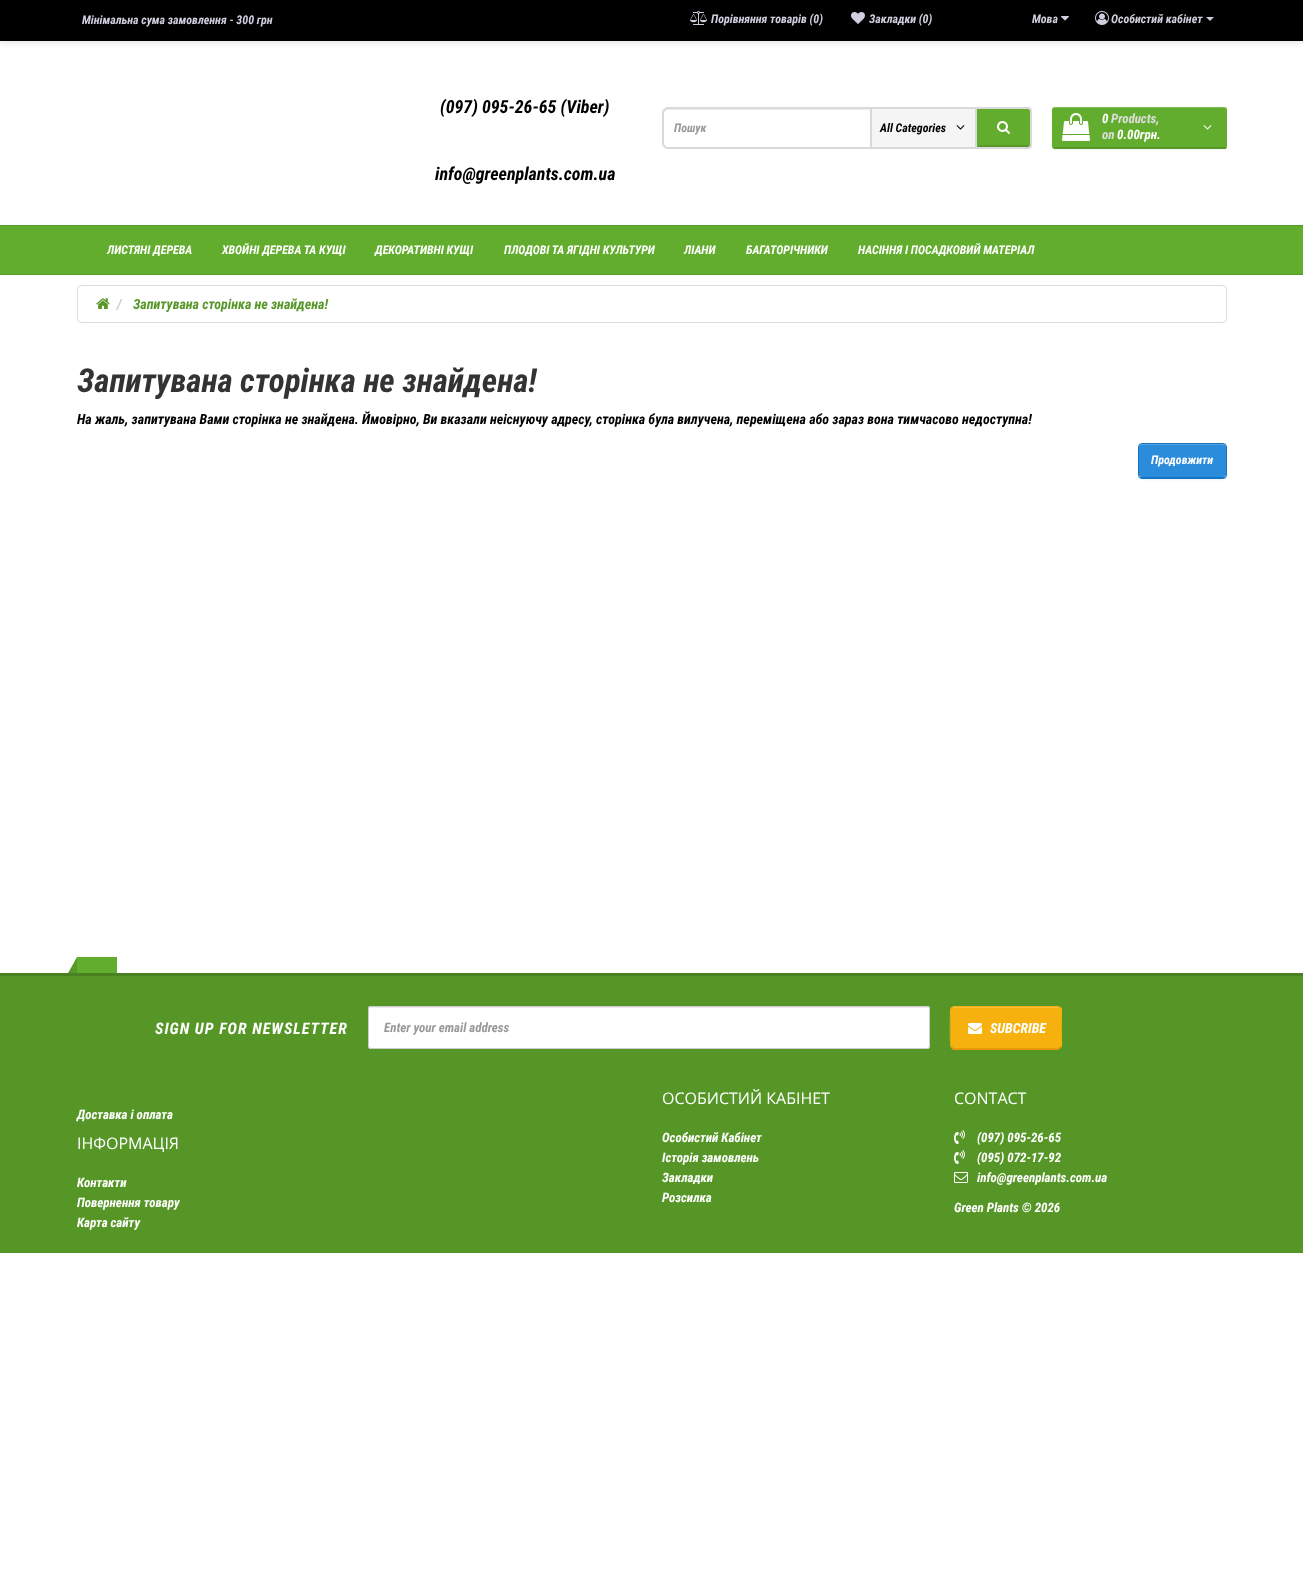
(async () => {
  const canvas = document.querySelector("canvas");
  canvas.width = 1303;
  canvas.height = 1578;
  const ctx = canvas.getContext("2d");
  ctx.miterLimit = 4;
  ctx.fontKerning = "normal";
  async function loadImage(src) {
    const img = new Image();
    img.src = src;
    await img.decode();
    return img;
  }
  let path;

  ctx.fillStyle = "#ffffff";
  ctx.fillRect(0, 0, 1303, 1578);
  ctx.fillStyle = "rgba(0, 0, 0, 0.1)";
  ctx.filter = "blur(3px)";
  ctx.beginPath();
  ctx.rect(0, 2, 1303, 41);
  ctx.fill();
  ctx.filter = "none";
  ctx.fillStyle = "#000000";
  ctx.fillRect(0, 0, 1303, 41);
  ctx.drawImage(await loadImage("img/1.png"), 690, 11, 17, 14);
  ctx.drawImage(await loadImage("img/2.png"), 851, 12, 14, 12);
  ctx.drawImage(await loadImage("img/3.png"), 1061, 16, 8, 5);
  ctx.drawImage(await loadImage("img/4.png"), 1095, 11, 14, 14);
  ctx.fillStyle = "#cecede";
  path = new Path2D("M1206 17H1214L1210 21Z");
  ctx.fill(path);
  ctx.fillStyle = "#ececec";
  path = new Path2D("M668 110H870V109H666C664 110 664 112 664 114C664 112 666 110 668 110Z");
  ctx.fill(path);
  ctx.fillStyle = "#d9d9d9";
  path = new Path2D("M668 107H870V149H668C665 149 662 146 662 143V113C662 110 665 107 668 107ZM668 109H870V147H668C666 147 664 145 664 143V113C664 111 666 109 668 109Z");
  ctx.fill(path, "evenodd");
  ctx.fillStyle = "#f5f5f5";
  ctx.beginPath();
  ctx.rect(871, 108, 105, 40);
  ctx.fill();
  ctx.strokeStyle = "#d9d9d9";
  ctx.lineWidth = 2;
  ctx.stroke();
  ctx.drawImage(await loadImage("img/5.png"), 956, 125, 9, 5);
  ctx.fillStyle = "#d9d9d9";
  ctx.beginPath();
  ctx.roundRect(976, 108, 55, 40, [0, 3, 3, 0]);
  ctx.fill();
  ctx.stroke();
  ctx.fillStyle = "#62ad2d";
  ctx.beginPath();
  ctx.roundRect(977, 109, 53, 38, [0, 3, 3, 0]);
  ctx.fill();
  path = new Path2D("M977 109L979 111H1028L1029 110L1027 109Z");
  ctx.fill(path);
  path = new Path2D("M1030 144V112C1030 111 1030 110 1029 110L1028 111V145L1029 146C1030 146 1030 145 1030 144Z");
  ctx.fill(path);
  ctx.fillStyle = "#58982b";
  path = new Path2D("M1027 147L1029 146L1028 145H979L977 147Z");
  ctx.fill(path);
  ctx.fillStyle = "#62ad2d";
  path = new Path2D("M977 109V147L979 145V111Z");
  ctx.fill(path);
  ctx.drawImage(await loadImage("img/6.png"), 997, 121, 13, 13);
  ctx.fillStyle = "rgba(0, 0, 0, 0.05)";
  ctx.filter = "blur(1px)";
  ctx.beginPath();
  ctx.roundRect(1052, 108, 175, 42, 3);
  ctx.fill();
  ctx.filter = "none";
  ctx.fillStyle = "#62ad2d";
  ctx.beginPath();
  ctx.roundRect(1052, 107, 175, 42, 3);
  ctx.fill();
  ctx.fillStyle = "rgba(255, 255, 255, 0.2)";
  path = new Path2D("M1055 108H1224C1226 108 1227 109 1227 111V110C1227 108 1226 107 1224 107H1055C1053 107 1052 108 1052 110V111C1052 109 1053 108 1055 108Z");
  ctx.fill(path);
  ctx.fillStyle = "#58982b";
  ctx.fillRect(1054, 147, 172, 2);
  ctx.drawImage(await loadImage("img/7.png"), 1062, 113, 28, 28);
  ctx.drawImage(await loadImage("img/8.png"), 1203, 125, 9, 5);
  for (const [x, y, w, h, color] of [
    [0, 226, 1303, 48, "#62ad2d"],
    [0, 225, 1303, 1, "#589c28"],
    [0, 274, 1303, 1, "#589c28"],
  ]) {
    ctx.fillStyle = color;
    ctx.fillRect(x, y, w, h);
  }
  ctx.beginPath();
  ctx.roundRect(77.5, 285.5, 1149, 37, 3.5);
  ctx.strokeStyle = "#dddddd";
  ctx.lineWidth = 1;
  ctx.stroke();
  ctx.drawImage(await loadImage("img/9.png"), 96, 298, 14, 11);
  ctx.fillStyle = "rgba(0, 0, 0, 0.05)";
  ctx.filter = "blur(1px)";
  ctx.beginPath();
  ctx.roundRect(1138, 444, 89, 36, 4);
  ctx.fill();
  ctx.filter = "none";
  ctx.fillStyle = "#2b8cdb";
  path = new Path2D("M1142 444H1223C1225 444 1226 445 1226 447V475C1226 476 1225 477 1223 477H1142C1140 477 1139 476 1139 475V447C1139 445 1140 444 1142 444Z");
  ctx.fill(path);
  ctx.fillStyle = "rgba(255, 255, 255, 0.2)";
  path = new Path2D("M1142 445H1223C1225 445 1226 446 1226 448C1226 440 1213 444 1210 444H1156C1152 444 1139 440 1139 448C1139 446 1140 445 1142 445Z");
  ctx.fill(path);
  ctx.beginPath();
  ctx.roundRect(1138.5, 443.5, 88, 35, 3.5);
  ctx.strokeStyle = "#1475c4";
  ctx.stroke();
  ctx.fillStyle = "#1475c4";
  ctx.fillRect(1140, 477, 85, 1);
  ctx.fillStyle = "#58982b";
  path = new Path2D("M77 957V975H67Z");
  ctx.fill(path);
  for (const [x, y, w, h, color] of [
    [0, 973, 1303, 3, "#498021"],
    [0, 976, 1303, 277, "#569627"],
    [77, 957, 40, 16, "#62ad2d"],
  ]) {
    ctx.fillStyle = color;
    ctx.fillRect(x, y, w, h);
  }
  ctx.fillStyle = "#ffffff";
  ctx.beginPath();
  ctx.roundRect(368, 1006, 562, 43, 3);
  ctx.fill();
  ctx.fillStyle = "#ececec";
  path = new Path2D("M371 1008H927C928 1008 929 1009 929 1010C929 1009 929 1007 927 1007H371L369 1008V1010C369 1009 370 1008 371 1008Z");
  ctx.fill(path);
  ctx.beginPath();
  ctx.roundRect(368.5, 1006.5, 561, 42, 2.5);
  ctx.strokeStyle = "#cccccc";
  ctx.stroke();
  ctx.fillStyle = "#f7b10f";
  path = new Path2D("M954 1007H1058C1060 1007 1061 1008 1061 1010V1046C1061 1047 1060 1048 1058 1048H954C952 1048 951 1047 951 1046V1010C951 1008 952 1007 954 1007Z");
  ctx.fill(path);
  ctx.save();
  ctx.beginPath();
  ctx.rect(67, 1006, 1170, 79);
  ctx.clip();
  ctx.fillStyle = "rgba(255, 255, 255, 0.2)";
  path = new Path2D("M954 1008H1058C1060 1008 1061 1009 1061 1011C1061 1002 1043 1007 1041 1007H971C969 1007 951 1002 951 1011C951 1009 952 1008 954 1008Z");
  ctx.fill(path);
  ctx.restore();
  path = new Path2D("M954 1006L951 1007L952 1008L954 1007H1058L1060 1008L1061 1007L1058 1006Z");
  ctx.fill(path);
  path = new Path2D("M1062 1046V1010C1062 1009 1062 1008 1061 1007L1060 1008C1062 1009 1061 1046 1061 1047V1048Z");
  ctx.fill(path);
  ctx.fillStyle = "#ea9709";
  path = new Path2D("M954 1050H1058L1061 1048V1047L1058 1048H954L951 1047V1048C952 1049 953 1050 954 1050Z");
  ctx.fill(path);
  ctx.fillStyle = "#f7b10f";
  path = new Path2D("M950 1010C950 1015 949 1046 951 1048V1047C951 1046 950 1009 952 1008L951 1007Z");
  ctx.fill(path);
  ctx.drawImage(await loadImage("img/10.png"), 968, 1023, 14, 11);
  ctx.drawImage(await loadImage("img/11.png"), 954, 1130, 11, 14);
  ctx.drawImage(await loadImage("img/11.png"), 954, 1150, 11, 14);
  ctx.drawImage(await loadImage("img/12.png"), 954, 1172, 14, 11);
  ctx.font = "italic bold 12px Roboto Condensed";
  ctx.fillStyle = "#cecede";
  for (const [text, x, y] of [
    ["Мінімальна сума замовлення - 300 грн", 82, 24],
    ["Порівняння товарів (0)", 711, 23],
    ["Закладки (0)", 869, 23],
    ["Мова", 1032, 23],
    ["Особистий кабінет", 1111, 23],
  ]) {
    ctx.fillText(text, x, y);
  }
  ctx.font = "italic bold 18px Roboto Condensed";
  ctx.fillStyle = "#000000";
  ctx.fillText("(097) 095-26-65 (Viber)", 440, 113);
  ctx.fillText("info@greenplants.com.ua", 435, 180);
  ctx.font = "italic bold 12px Roboto Condensed";
  ctx.fillStyle = "#999999";
  ctx.fillText("Пошук", 674, 132);
  ctx.fillStyle = "#000000";
  ctx.fillText("All Categories", 880, 132);
  ctx.font = "italic bold 13px Roboto Condensed";
  ctx.fillStyle = "#ffffff";
  ctx.fillText("0", 1102, 123);
  ctx.fillStyle = "#dddddd";
  ctx.fillText("Products,", 1111, 123);
  ctx.fillText("on", 1102, 139);
  ctx.fillStyle = "#ffffff";
  ctx.fillText("0.00грн.", 1117, 139);
  ctx.font = "italic bold 12px Roboto Condensed";
  for (const [text, x, y] of [
    ["ЛИСТЯНІ ДЕРЕВА", 107, 254],
    ["ХВОЙНІ ДЕРЕВА ТА КУЩІ", 222, 254],
    ["ДЕКОРАТИВНІ КУЩІ", 375, 254],
    ["ПЛОДОВІ ТА ЯГІДНІ КУЛЬТУРИ", 504, 254],
    ["ЛІАНИ", 684, 254],
    ["БАГАТОРІЧНИКИ", 746, 254],
    ["НАСІННЯ І ПОСАДКОВИЙ МАТЕРІАЛ", 858, 254],
  ]) {
    ctx.fillText(text, x, y);
  }
  ctx.font = "italic bold 14px Roboto Condensed";
  ctx.fillStyle = "#cccccc";
  ctx.fillText("/", 117, 309);
  ctx.fillStyle = "#58982b";
  ctx.fillText("Запитувана сторінка не знайдена!", 133, 309);
  ctx.font = "italic bold 33px Roboto Condensed";
  ctx.fillStyle = "#333333";
  ctx.fillText("Запитувана сторінка не знайдена!", 77, 392);
  ctx.font = "italic bold 14px Roboto Condensed";
  ctx.fillStyle = "#000000";
  ctx.fillText("На жаль, запитувана Вами сторінка не знайдена. Ймовірно, Ви вказали неіснуючу адресу, сторінка була вилучена, переміщена або зараз вона тимчасово недоступна!", 77, 424);
  ctx.font = "italic bold 12px Roboto Condensed";
  ctx.fillStyle = "#ffffff";
  ctx.fillText("Продовжити", 1151, 464);
  ctx.letterSpacing = "1px";
  ctx.font = "italic bold 16px Roboto Condensed";
  ctx.fillText("SIGN UP FOR NEWSLETTER", 155, 1034);
  ctx.letterSpacing = "0px";
  ctx.font = "italic bold 13px Roboto Condensed";
  ctx.fillStyle = "#999999";
  ctx.fillText("Enter your email address", 384, 1032);
  ctx.font = "italic bold 14px Roboto Condensed";
  ctx.fillStyle = "#ffffff";
  ctx.fillText("SUBCRIBE", 990, 1033);
  ctx.font = "italic bold 13px Roboto Condensed";
  ctx.fillText("Доставка і оплата", 77, 1119);
  ctx.font = "16px Open Sans";
  ctx.fillText("ІНФОРМАЦІЯ", 77, 1149);
  ctx.font = "italic bold 13px Roboto Condensed";
  for (const [text, x, y] of [
    ["Контакти", 77, 1187],
    ["Повернення товару", 77, 1207],
    ["Карта сайту", 77, 1227],
  ]) {
    ctx.fillText(text, x, y);
  }
  ctx.font = "16px Open Sans";
  ctx.fillText("ОСОБИСТИЙ КАБІНЕТ", 662, 1104);
  ctx.font = "italic bold 13px Roboto Condensed";
  for (const [text, x, y] of [
    ["Особистий Кабінет", 662, 1142],
    ["Історія замовлень", 662, 1162],
    ["Закладки", 662, 1182],
    ["Розсилка", 662, 1202],
  ]) {
    ctx.fillText(text, x, y);
  }
  ctx.font = "16px Open Sans";
  ctx.fillText("CONTACT", 954, 1104);
  ctx.font = "italic bold 13px Roboto Condensed";
  for (const [text, x, y] of [
    ["(097) 095-26-65", 977, 1142],
    ["(095) 072-17-92", 977, 1162],
    ["info@greenplants.com.ua", 977, 1182],
    ["Green Plants © 2026", 954, 1212],
  ]) {
    ctx.fillText(text, x, y);
  }
})();
